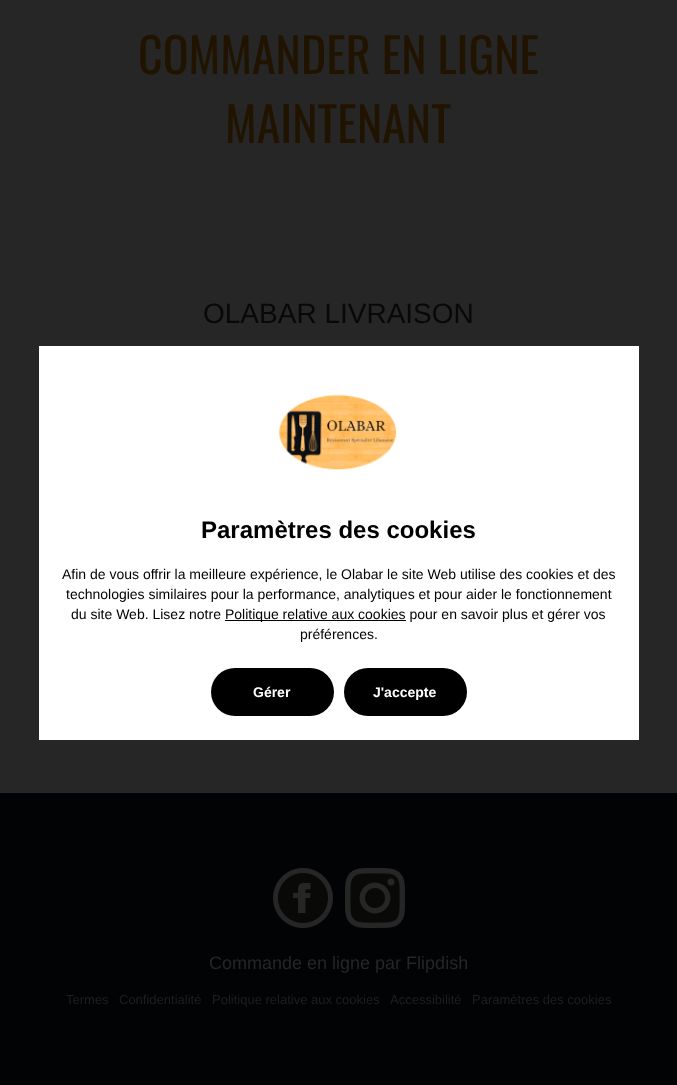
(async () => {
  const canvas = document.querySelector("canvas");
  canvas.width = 677;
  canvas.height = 1085;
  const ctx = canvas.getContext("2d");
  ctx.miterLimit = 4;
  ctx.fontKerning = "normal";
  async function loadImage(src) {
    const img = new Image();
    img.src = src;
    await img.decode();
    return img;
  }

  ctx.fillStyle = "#262626";
  ctx.fillRect(0, 0, 677, 1085);
  ctx.fillStyle = "#010305";
  ctx.fillRect(0, 793, 677, 292);
  ctx.fillStyle = "#090908";
  ctx.beginPath();
  ctx.arc(303, 898, 30, 0, Math.PI * 2);
  ctx.fill();
  ctx.drawImage(await loadImage("img/1.png"), 273, 868, 60, 60);
  ctx.beginPath();
  ctx.arc(375, 898, 30, 0, Math.PI * 2);
  ctx.fill();
  ctx.drawImage(await loadImage("img/2.png"), 345, 868, 60, 60);
  ctx.fillStyle = "#ffffff";
  ctx.fillRect(39, 346, 600, 394);
  ctx.drawImage(await loadImage("img/3.png"), 279, 394, 118, 76);
  ctx.fillStyle = "#000000";
  ctx.fillRect(225, 620, 181, 1);
  ctx.beginPath();
  ctx.roundRect(211, 668, 123, 48, 24);
  ctx.fill();
  ctx.beginPath();
  ctx.roundRect(344, 668, 123, 48, 24);
  ctx.fill();
  ctx.font = "48px Oswald";
  ctx.fillStyle = "#201400";
  ctx.fillText("COMMANDER EN LIGNE", 138, 74);
  ctx.fillText("MAINTENANT", 225, 143);
  ctx.font = "28px Liberation Sans";
  ctx.fillStyle = "#080808";
  ctx.fillText("OLABAR LIVRAISON", 203, 323);
  ctx.font = "18px Liberation Sans";
  ctx.fillStyle = "#262626";
  ctx.fillText("Commande en ligne par Flipdish", 209, 969);
  ctx.font = "13px Liberation Sans";
  ctx.fillStyle = "#1f1f1f";
  for (const [text, x, y] of [
    ["Termes", 66, 1004],
    ["Confidentialité", 119, 1004],
    ["Politique relative aux cookies", 212, 1004],
    ["Accessibilité", 390, 1004],
    ["Paramètres des cookies", 472, 1004],
  ]) {
    ctx.fillText(text, x, y);
  }
  ctx.font = "bold 24px Liberation Sans";
  ctx.fillStyle = "#000000";
  ctx.fillText("Paramètres des cookies", 201, 538);
  ctx.font = "14px Liberation Sans";
  for (const [text, x, y] of [
    ["Afin de vous offrir la meilleure expérience, le Olabar le site Web utilise des cookies et des", 62, 579],
    ["technologies similaires pour la performance, analytiques et pour aider le fonctionnement", 66, 599],
    ["du site Web. Lisez notre", 71, 619],
    ["Politique relative aux cookies pour en savoir plus et gérer vos", 225, 619],
    ["préférences.", 300, 639],
  ]) {
    ctx.fillText(text, x, y);
  }
  ctx.font = "bold 14px Liberation Sans";
  ctx.fillStyle = "#ffffff";
  ctx.fillText("Gérer", 253, 697);
  ctx.fillText("J'accepte", 373, 697);
})();
